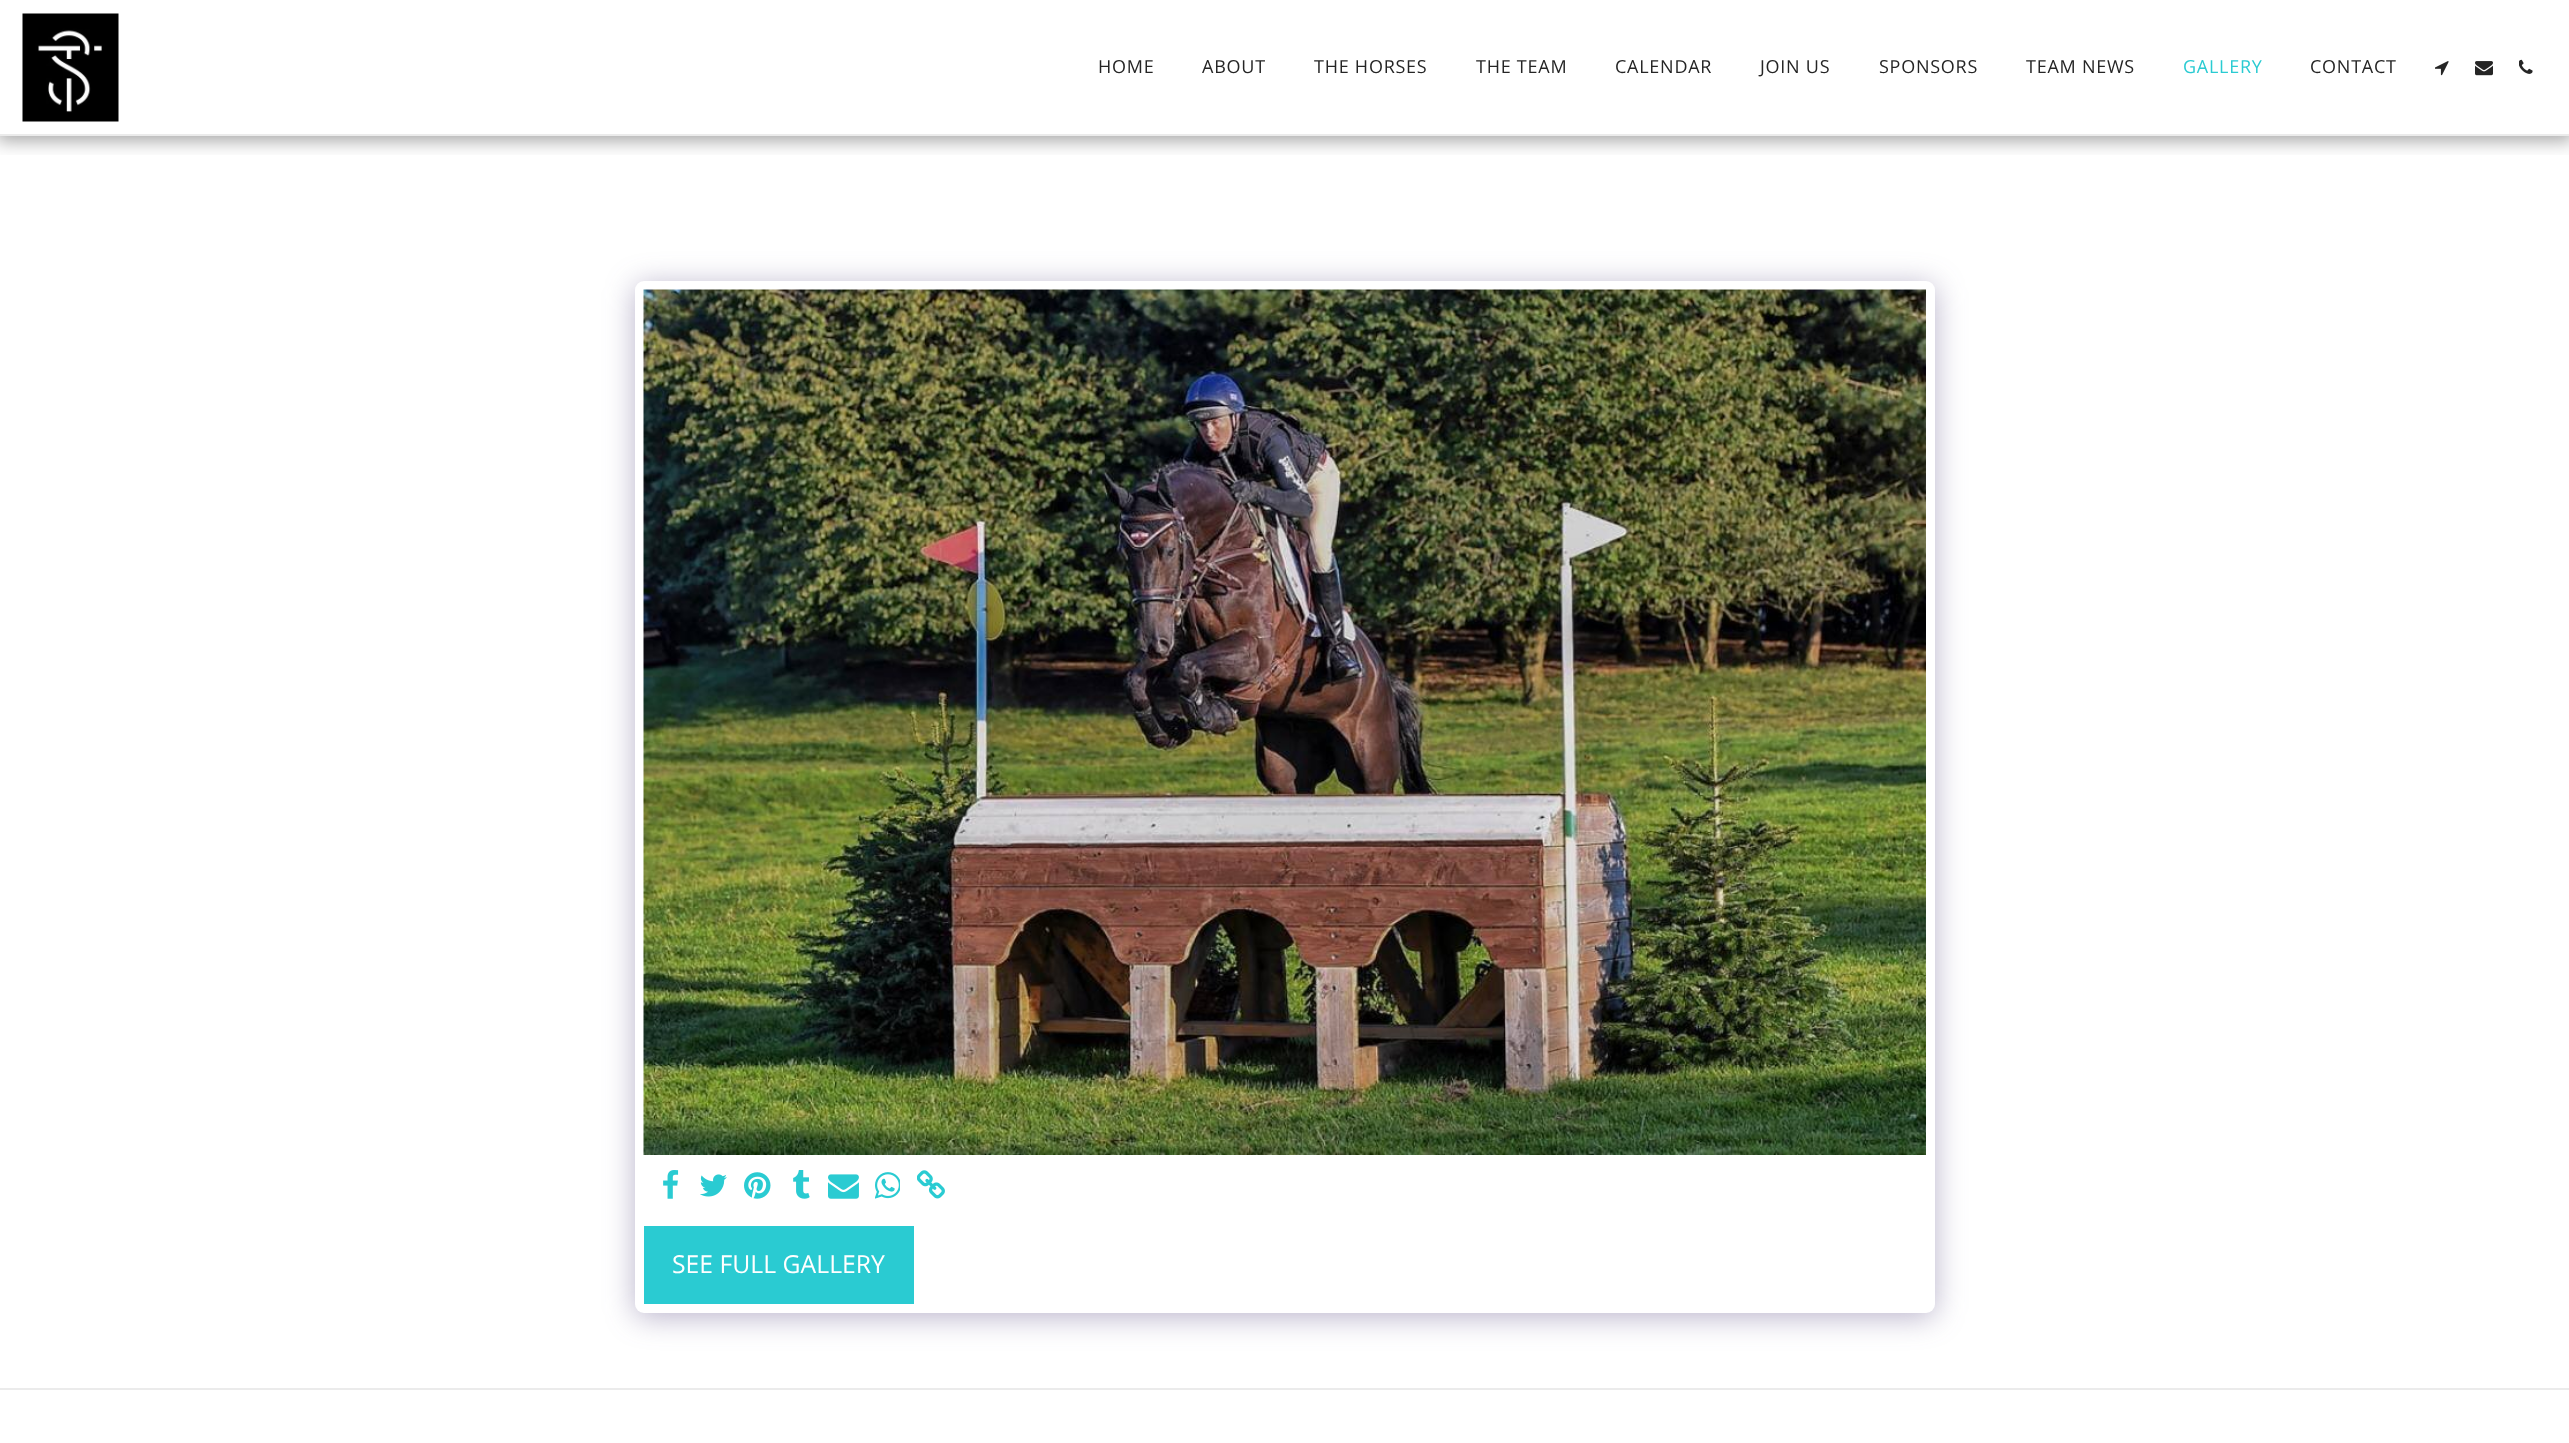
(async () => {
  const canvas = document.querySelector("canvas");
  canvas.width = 2569;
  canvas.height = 1443;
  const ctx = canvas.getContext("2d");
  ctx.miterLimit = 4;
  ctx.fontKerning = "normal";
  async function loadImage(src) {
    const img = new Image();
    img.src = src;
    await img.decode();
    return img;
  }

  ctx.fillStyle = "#ffffff";
  ctx.fillRect(0, 0, 2569, 1443);
  ctx.save();
  ctx.beginPath();
  ctx.rect(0, 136, 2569, 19);
  ctx.clip();
  ctx.fillStyle = "rgba(0, 0, 0, 0.35)";
  ctx.filter = "blur(9px)";
  ctx.beginPath();
  ctx.rect(-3, 0, 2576, 141);
  ctx.fill();
  ctx.filter = "none";
  ctx.restore();
  ctx.fillStyle = "#ebebeb";
  ctx.fillRect(0, 134, 2569, 2);
  ctx.drawImage(await loadImage("img/1.png"), 22, 13, 97, 109);
  ctx.drawImage(await loadImage("img/2.png"), 2435, 61, 14, 15);
  ctx.drawImage(await loadImage("img/3.png"), 2475, 61, 18, 15);
  ctx.drawImage(await loadImage("img/4.png"), 2519, 59, 14, 15);
  ctx.fillStyle = "rgba(77, 63, 122, 0.4)";
  ctx.filter = "blur(15px)";
  ctx.beginPath();
  ctx.roundRect(635, 285, 1300, 1032, 9);
  ctx.fill();
  ctx.filter = "none";
  ctx.fillStyle = "#ffffff";
  ctx.beginPath();
  ctx.roundRect(635, 281, 1300, 1032, 9);
  ctx.fill();
  ctx.drawImage(await loadImage("img/5.png"), 643, 289, 1283, 866);
  ctx.drawImage(await loadImage("img/6.png"), 663, 1170, 16, 29);
  ctx.drawImage(await loadImage("img/7.png"), 700, 1174, 27, 23);
  ctx.drawImage(await loadImage("img/8.png"), 744, 1172, 27, 27);
  ctx.drawImage(await loadImage("img/9.png"), 793, 1170, 17, 29);
  ctx.drawImage(await loadImage("img/10.png"), 828, 1174, 31, 25);
  ctx.drawImage(await loadImage("img/11.png"), 875, 1172, 25, 27);
  ctx.drawImage(await loadImage("img/12.png"), 917, 1170, 28, 29);
  ctx.fillStyle = "#2acbd2";
  ctx.fillRect(644, 1226, 270, 78);
  ctx.fillStyle = "#ebebeb";
  ctx.fillRect(0, 1388, 2569, 2);
  ctx.letterSpacing = "0.75px";
  ctx.font = "18px Open Sans";
  ctx.fillStyle = "#252525";
  for (const [text, x, y] of [
    ["HOME", 1098, 73],
    ["ABOUT", 1202, 73],
    ["THE HORSES", 1314, 73],
    ["THE TEAM", 1476, 73],
    ["CALENDAR", 1615, 73],
    ["JOIN US", 1760, 73],
    ["SPONSORS", 1879, 73],
    ["TEAM NEWS", 2026, 73],
  ]) {
    ctx.fillText(text, x, y);
  }
  ctx.fillStyle = "#2acbd2";
  ctx.fillText("GALLERY", 2183, 73);
  ctx.fillStyle = "#252525";
  ctx.fillText("CONTACT", 2310, 73);
  ctx.letterSpacing = "0px";
  ctx.font = "24.75px Open Sans";
  ctx.fillStyle = "#ffffff";
  ctx.fillText("SEE FULL GALLERY", 672, 1273);
})();
